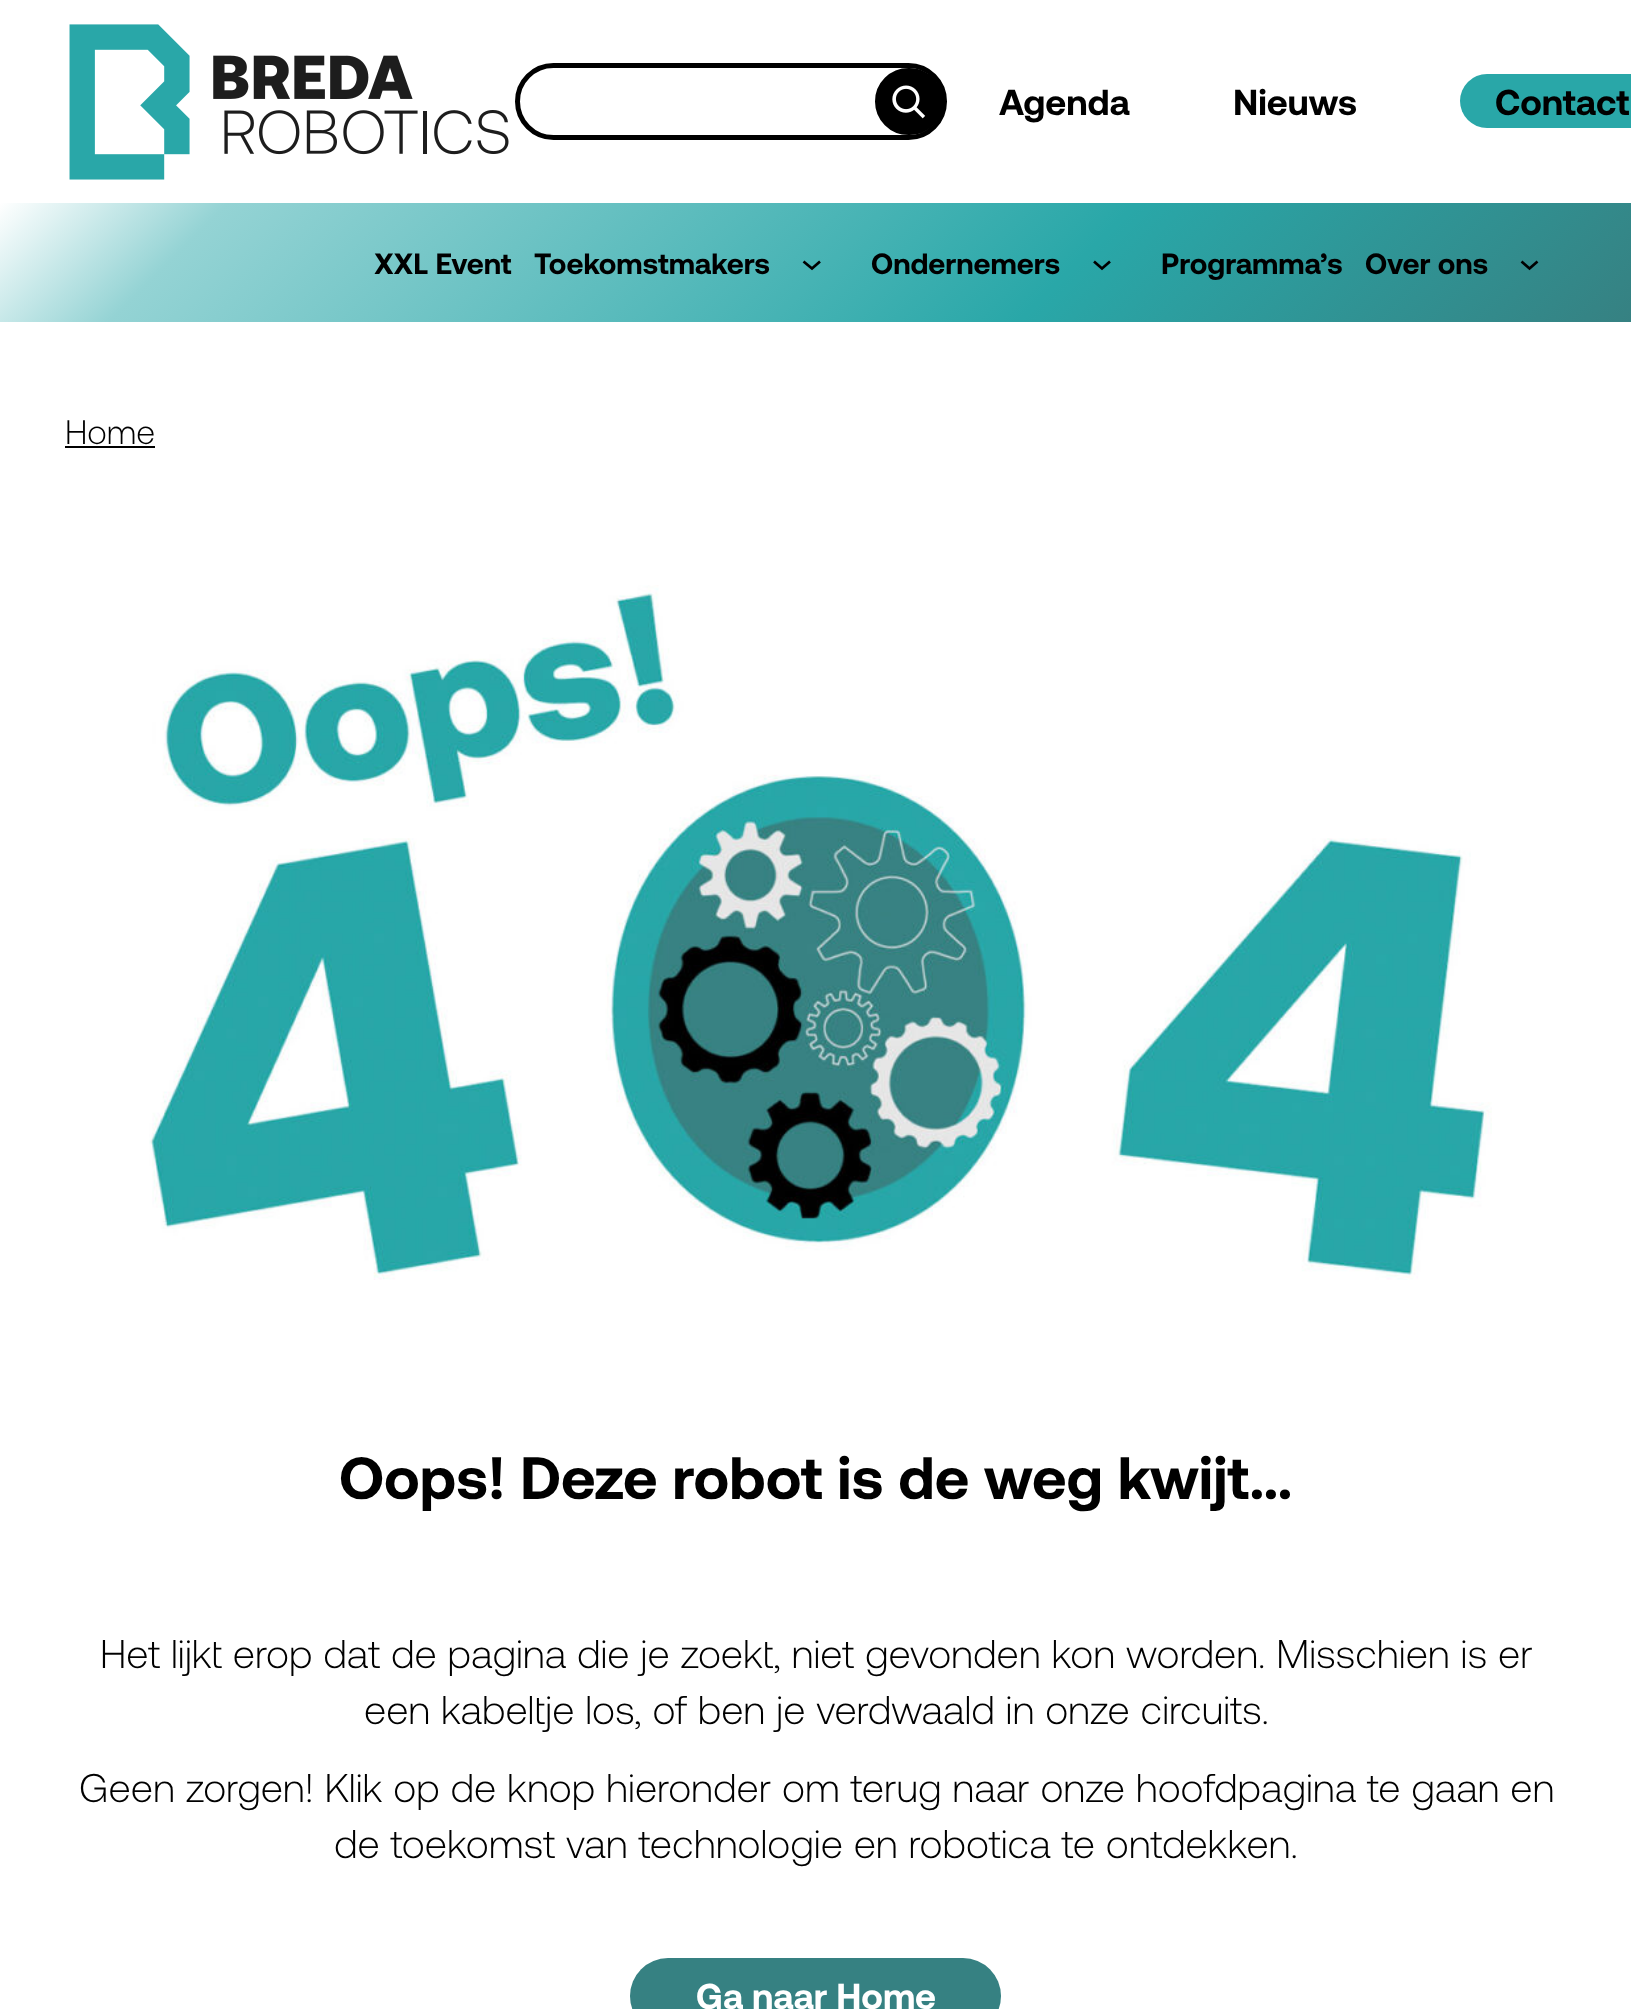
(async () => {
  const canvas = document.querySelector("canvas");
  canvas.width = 1631;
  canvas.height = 2009;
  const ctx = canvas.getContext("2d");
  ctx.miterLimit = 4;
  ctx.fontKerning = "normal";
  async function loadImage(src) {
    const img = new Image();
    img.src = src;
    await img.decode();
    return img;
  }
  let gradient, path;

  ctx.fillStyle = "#ffffff";
  ctx.fillRect(0, 0, 1631, 2009);
  ctx.drawImage(await loadImage("img/1.png"), 69, 24, 440, 156);
  ctx.beginPath();
  ctx.roundRect(517.5, 65.5, 427, 72, 36);
  ctx.strokeStyle = "#000000";
  ctx.lineWidth = 5;
  ctx.stroke();
  ctx.fillStyle = "#000000";
  ctx.beginPath();
  ctx.roundRect(877.5, 70.5, 63, 62, 31);
  ctx.fill();
  ctx.stroke();
  ctx.drawImage(await loadImage("img/2.png"), 892, 85, 34, 34);
  ctx.fillStyle = "#29a7a8";
  ctx.beginPath();
  ctx.roundRect(1460, 74, 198, 54, 27);
  ctx.fill();
  gradient = ctx.createLinearGradient(378, -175, 1253, 700);
  gradient.addColorStop(0, "#ffffff");
  gradient.addColorStop(0.13, "#94d3d4");
  gradient.addColorStop(0.65, "#29a7a8");
  gradient.addColorStop(1, "#368182");
  ctx.fillStyle = gradient;
  ctx.fillRect(0, 203, 1631, 119);
  path = new Path2D("M803.5 261.5L812 268.5L820 261.5");
  ctx.lineWidth = 2.7;
  ctx.stroke(path);
  path = new Path2D("M1094 261.5L1102 268.5L1110 261.5");
  ctx.stroke(path);
  path = new Path2D("M1521.5 261.5L1529.5 268.5L1537.5 261.5");
  ctx.stroke(path);
  ctx.fillStyle = "#000000";
  ctx.fillRect(65, 446, 90, 2);
  ctx.drawImage(await loadImage("img/3.png"), 149, 585, 1343, 695);
  ctx.fillStyle = "#368182";
  ctx.beginPath();
  ctx.roundRect(630, 1958, 371, 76, 38);
  ctx.fill();
  ctx.font = "bold 36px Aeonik";
  ctx.fillStyle = "#000000";
  for (const [text, x, y] of [
    ["Agenda", 999, 115],
    ["Nieuws", 1233, 115],
    ["Contact", 1495, 115],
  ]) {
    ctx.fillText(text, x, y);
  }
  ctx.font = "bold 29.25px Aeonik";
  for (const [text, x, y] of [
    ["XXL Event", 374, 274],
    ["Toekomstmakers", 534, 274],
    ["Ondernemers", 871, 274],
    ["Programma’s", 1161, 274],
    ["Over ons", 1365, 274],
  ]) {
    ctx.fillText(text, x, y);
  }
  ctx.font = "300 34px Aeonik";
  ctx.fillText("Home", 65, 444);
  ctx.font = "bold 59.5px Aeonik";
  ctx.fillText("Oops! Deze robot is de weg kwijt…", 339, 1499);
  ctx.font = "300 40.05px Aeonik";
  for (const [text, x, y] of [
    ["Het lijkt erop dat de pagina die je zoekt, niet gevonden kon worden. Misschien is er", 100, 1668],
    ["een kabeltje los, of ben je verdwaald in onze circuits.", 364, 1724],
    ["Geen zorgen! Klik op de knop hieronder om terug naar onze hoofdpagina te gaan en", 79, 1802],
    ["de toekomst van technologie en robotica te ontdekken.", 334, 1858],
  ]) {
    ctx.fillText(text, x, y);
  }
  ctx.font = "bold 36px Aeonik";
  ctx.fillStyle = "#ffffff";
  ctx.fillText("Ga naar Home", 696, 2009);
})();
